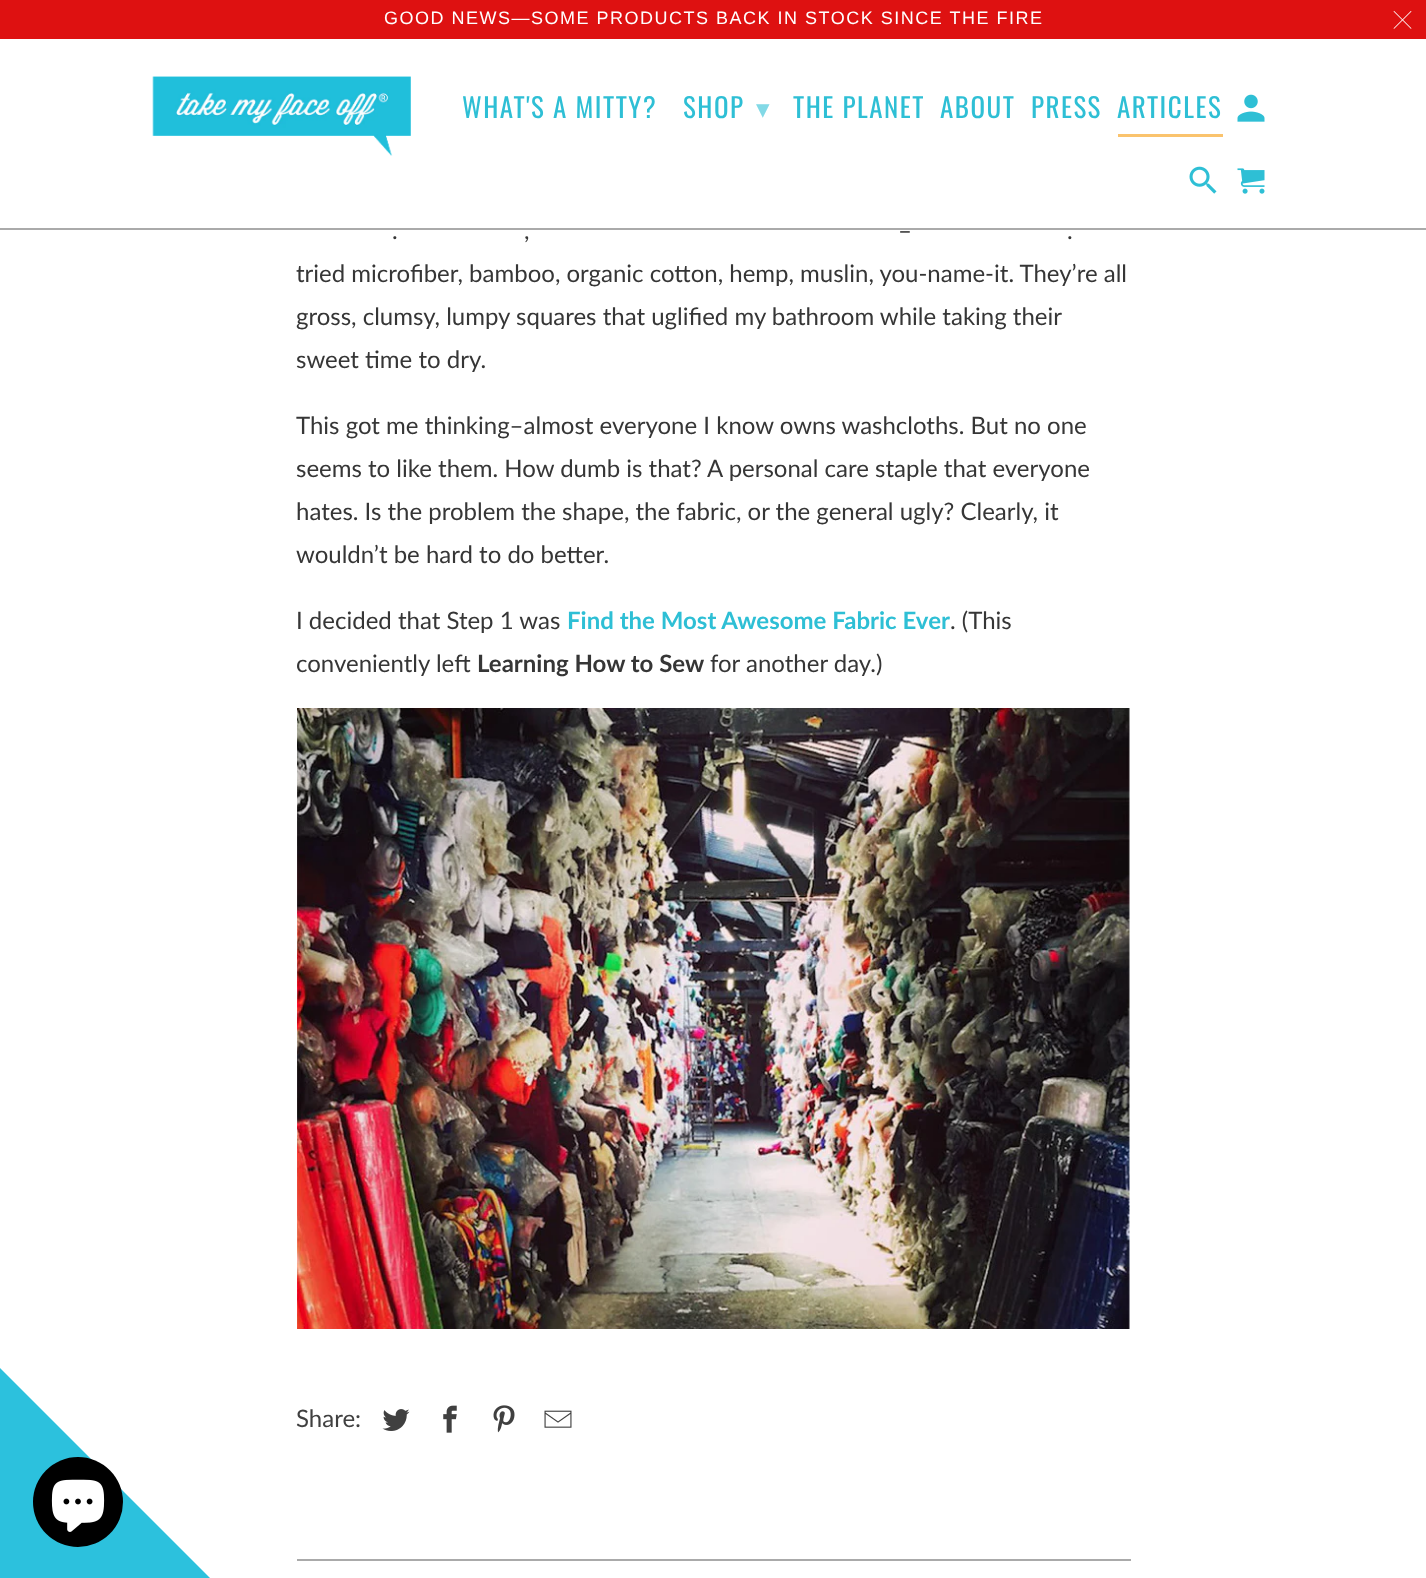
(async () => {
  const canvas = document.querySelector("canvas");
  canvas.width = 1426;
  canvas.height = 1578;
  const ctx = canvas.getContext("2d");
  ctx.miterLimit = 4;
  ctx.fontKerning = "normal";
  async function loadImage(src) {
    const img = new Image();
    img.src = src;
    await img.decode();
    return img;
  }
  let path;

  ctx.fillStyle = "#ffffff";
  ctx.fillRect(0, 0, 1426, 1578);
  ctx.fillStyle = "#aaaaaa";
  ctx.fillRect(0, 228, 1426, 2);
  ctx.fillStyle = "#de1111";
  ctx.fillRect(0, 0, 1426, 39);
  ctx.drawImage(await loadImage("img/1.png"), 1393, 11, 19, 18);
  ctx.drawImage(await loadImage("img/2.png"), 152, 76, 259, 80);
  ctx.fillStyle = "#fac36d";
  ctx.fillRect(1118, 134, 105, 3);
  ctx.drawImage(await loadImage("img/3.png"), 1237, 94, 28, 28);
  ctx.drawImage(await loadImage("img/4.png"), 1189, 166, 28, 28);
  ctx.drawImage(await loadImage("img/5.png"), 1237, 168, 28, 26);
  ctx.drawImage(await loadImage("img/6.png"), 297, 708, 833, 621);
  ctx.drawImage(await loadImage("img/7.png"), 382, 1409, 28, 22);
  ctx.drawImage(await loadImage("img/8.png"), 443, 1405, 14, 28);
  ctx.drawImage(await loadImage("img/9.png"), 493, 1405, 22, 28);
  ctx.drawImage(await loadImage("img/10.png"), 544, 1410, 28, 18);
  ctx.fillStyle = "#aaaaaa";
  ctx.fillRect(297, 1559, 834, 2);
  ctx.fillStyle = "#2cc1dd";
  path = new Path2D("M0 1368V1578H210Z");
  ctx.fill(path);
  ctx.fillStyle = "#000000";
  ctx.beginPath();
  ctx.arc(78, 1502, 45, 0, Math.PI * 2);
  ctx.fill();
  ctx.drawImage(await loadImage("img/11.png"), 51, 1479, 54, 53);
  ctx.letterSpacing = "1.5px";
  ctx.font = "18px Liberation Sans";
  ctx.fillStyle = "#ffffff";
  ctx.fillText("GOOD NEWS—SOME PRODUCTS BACK IN STOCK SINCE THE FIRE", 384, 24);
  ctx.font = "27px Oswald";
  ctx.fillStyle = "#2ebfd5";
  ctx.fillText("WHAT'S A MITTY?", 462, 118);
  ctx.fillText("SHOP", 683, 118);
  ctx.font = "27px DejaVu Sans";
  ctx.fillStyle = "#82d9e6";
  ctx.fillText("▾", 756, 118);
  ctx.font = "27px Oswald";
  ctx.fillStyle = "#2ebfd5";
  for (const [text, x, y] of [
    ["THE PLANET", 793, 118],
    ["ABOUT", 940, 118],
    ["PRESS", 1031, 118],
    ["ARTICLES", 1117, 118],
  ]) {
    ctx.fillText(text, x, y);
  }
  ctx.letterSpacing = "0px";
  ctx.font = "24px Lato";
  ctx.fillStyle = "#363636";
  for (const [text, x, y] of [
    ["–", 898, 239],
    [".", 392, 239],
    [",", 524, 239],
    [".", 1067, 239],
    ["tried microfiber, bamboo, organic cotton, hemp, muslin, you-name-it. They’re all", 296, 282],
    ["gross, clumsy, lumpy squares that uglified my bathroom while taking their", 296, 325],
    ["sweet time to dry.", 296, 368],
    ["This got me thinking–almost everyone I know owns washcloths. But no one", 296, 434],
    ["seems to like them. How dumb is that? A personal care staple that everyone", 296, 477],
    ["hates. Is the problem the shape, the fabric, or the general ugly? Clearly, it", 296, 520],
    ["wouldn’t be hard to do better.", 296, 563],
    ["I decided that Step 1 was", 296, 629],
  ]) {
    ctx.fillText(text, x, y);
  }
  ctx.font = "bold 24px Lato";
  ctx.fillStyle = "#2ebfd5";
  ctx.fillText("Find the Most Awesome Fabric Ever", 567, 629);
  ctx.font = "24px Lato";
  ctx.fillStyle = "#363636";
  ctx.fillText(". (This", 950, 629);
  ctx.fillText("conveniently left", 296, 672);
  ctx.font = "bold 24px Lato";
  ctx.fillText("Learning How to Sew", 477, 672);
  ctx.font = "24px Lato";
  ctx.fillText("for another day.)", 710, 672);
  ctx.fillStyle = "#404040";
  ctx.fillText("Share:", 296, 1427);
})();
